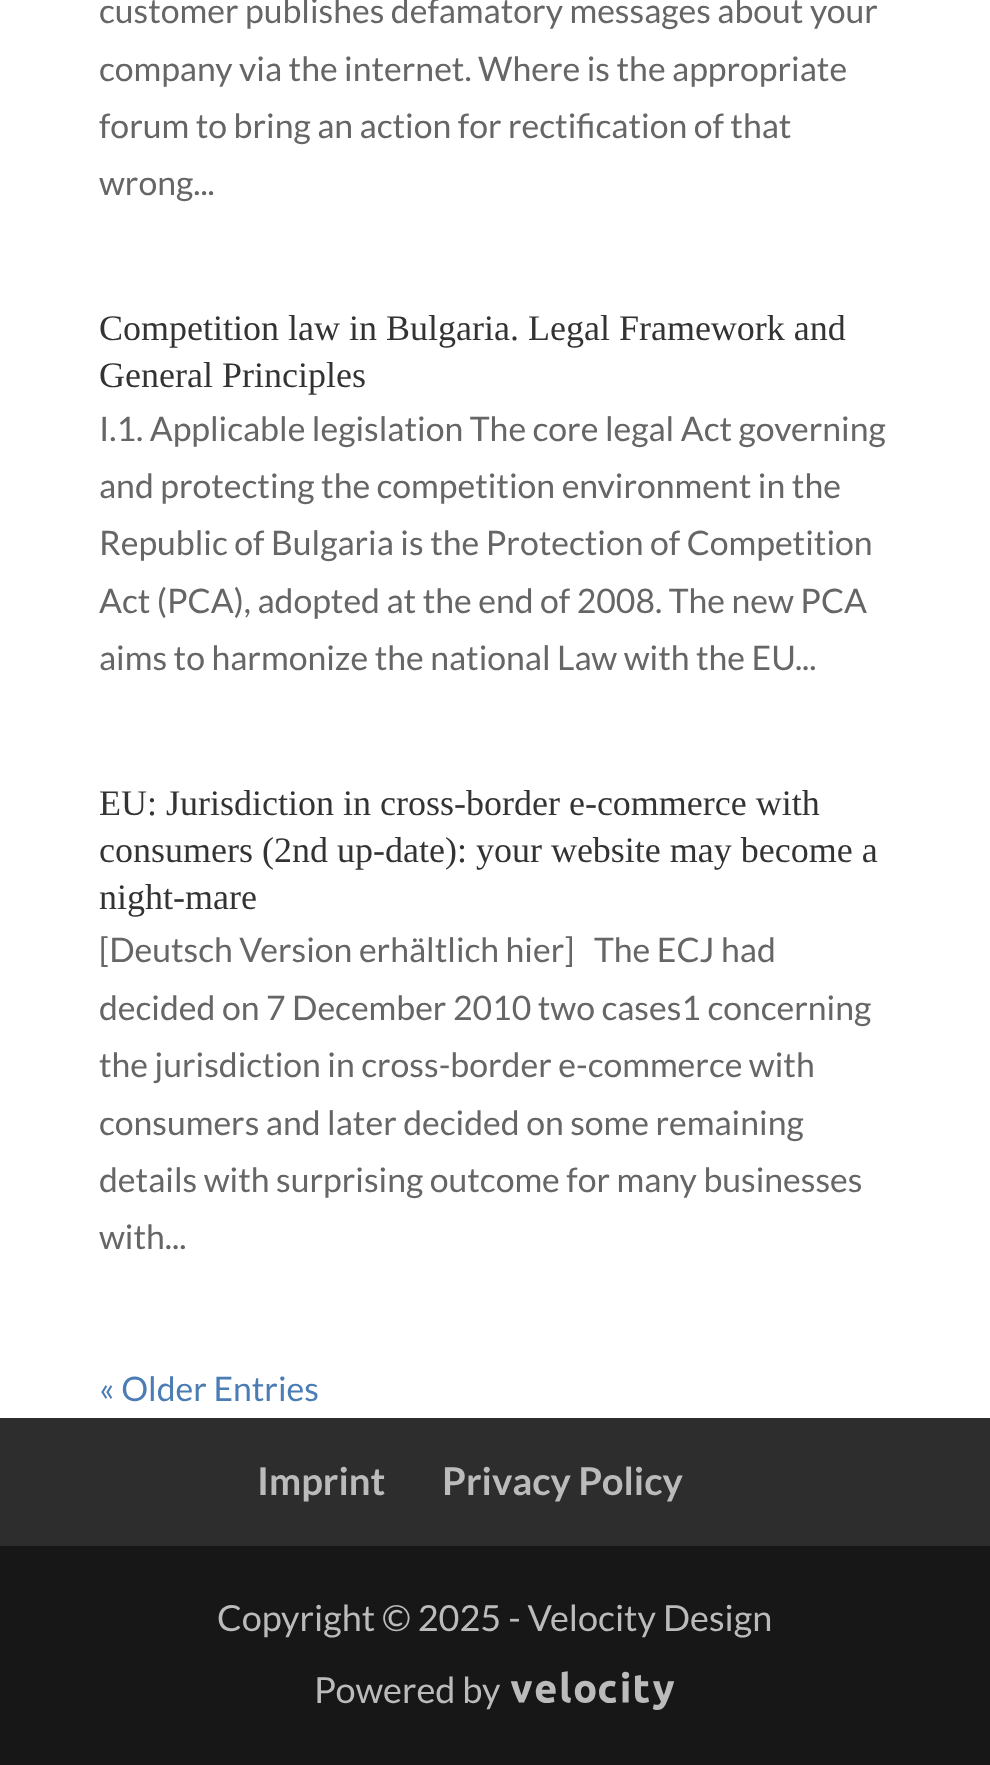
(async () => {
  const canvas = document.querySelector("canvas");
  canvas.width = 990;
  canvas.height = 1765;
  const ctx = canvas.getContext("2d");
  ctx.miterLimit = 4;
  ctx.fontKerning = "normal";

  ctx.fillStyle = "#ffffff";
  ctx.fillRect(0, 0, 990, 1765);
  ctx.fillStyle = "#2d2d2d";
  ctx.fillRect(0, 1418, 990, 128);
  ctx.fillStyle = "#171717";
  ctx.fillRect(0, 1546, 990, 219);
  ctx.font = "33.75px Lato";
  ctx.fillStyle = "#666666";
  for (const [text, x, y] of [
    ["customer publishes defamatory messages about your", 99, 23],
    ["company via the internet. Where is the appropriate", 99, 81],
    ["forum to bring an action for rectification of that", 99, 138],
    ["wrong...", 99, 195],
  ]) {
    ctx.fillText(text, x, y);
  }
  ctx.font = "36px Liberation Serif";
  ctx.fillStyle = "#333333";
  ctx.fillText("Competition law in Bulgaria. Legal Framework and", 99, 340);
  ctx.fillText("General Principles", 99, 387);
  ctx.font = "33.75px Lato";
  ctx.fillStyle = "#666666";
  for (const [text, x, y] of [
    ["I.1. Applicable legislation The core legal Act governing", 99, 441],
    ["and protecting the competition environment in the", 99, 498],
    ["Republic of Bulgaria is the Protection of Competition", 99, 555],
    ["Act (PCA), adopted at the end of 2008. The new PCA", 99, 613],
    ["aims to harmonize the national Law with the EU...", 99, 670],
  ]) {
    ctx.fillText(text, x, y);
  }
  ctx.font = "36px Liberation Serif";
  ctx.fillStyle = "#333333";
  for (const [text, x, y] of [
    ["EU: Jurisdiction in cross-border e-commerce with", 99, 815],
    ["consumers (2nd up-date): your website may become a", 99, 862],
    ["night-mare", 99, 909],
  ]) {
    ctx.fillText(text, x, y);
  }
  ctx.font = "33.75px Lato";
  ctx.fillStyle = "#666666";
  for (const [text, x, y] of [
    ["[Deutsch Version erhältlich hier]   The ECJ had", 99, 962],
    ["decided on 7 December 2010 two cases1 concerning", 99, 1020],
    ["the jurisdiction in cross-border e-commerce with", 99, 1077],
    ["consumers and later decided on some remaining", 99, 1135],
    ["details with surprising outcome for many businesses", 99, 1192],
    ["with...", 99, 1249],
  ]) {
    ctx.fillText(text, x, y);
  }
  ctx.fillStyle = "#4b7db4";
  ctx.fillText("« Older Entries", 99, 1401);
  ctx.font = "bold 38.25px Lato";
  ctx.fillStyle = "#bbbbbb";
  ctx.fillText("Imprint", 257, 1495);
  ctx.fillText("Privacy Policy", 442, 1495);
  ctx.font = "36px Lato";
  ctx.fillText("Copyright © 2025 - Velocity Design", 217, 1631);
  ctx.fillText("Powered by", 314, 1703);
  ctx.font = "36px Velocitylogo";
  ctx.fillText("Velocity", 509, 1703);
})();
